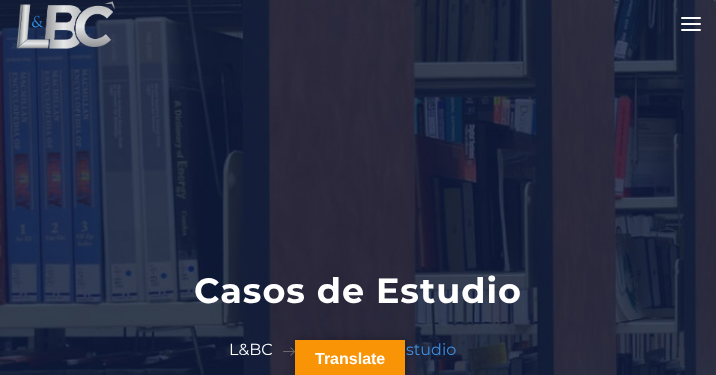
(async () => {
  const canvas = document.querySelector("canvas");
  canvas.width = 716;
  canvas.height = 375;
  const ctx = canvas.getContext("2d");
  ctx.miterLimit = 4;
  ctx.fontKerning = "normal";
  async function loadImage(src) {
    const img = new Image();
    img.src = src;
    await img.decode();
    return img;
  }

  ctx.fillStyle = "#ffffff";
  ctx.fillRect(0, 0, 716, 375);
  ctx.drawImage(await loadImage("img/2.png"), 0, 0, 716, 375);
  ctx.drawImage(await loadImage("img/1.png"), 16, 1, 100, 48);
  ctx.beginPath();
  ctx.roundRect(681, 17, 20, 2, 1);
  ctx.fill();
  ctx.beginPath();
  ctx.roundRect(681, 23, 20, 2, 1);
  ctx.fill();
  ctx.beginPath();
  ctx.roundRect(681, 29, 20, 2, 1);
  ctx.fill();
  ctx.drawImage(await loadImage("img/3.png"), 283, 347, 12, 9);
  ctx.fillStyle = "rgba(0, 0, 0, 0.3)";
  ctx.filter = "blur(4.5px)";
  ctx.beginPath();
  ctx.rect(295, 340, 110, 35);
  ctx.fill();
  ctx.filter = "none";
  ctx.fillStyle = "#f89406";
  ctx.fillRect(295, 340, 110, 35);
  ctx.letterSpacing = "1px";
  ctx.font = "bold 35px Montserrat";
  ctx.fillStyle = "#ffffff";
  ctx.fillText("Casos de Estudio", 194, 303);
  ctx.letterSpacing = "0px";
  ctx.font = "16px Montserrat";
  ctx.fillText("L&BC", 229, 355);
  ctx.fillStyle = "#3e8ede";
  ctx.fillText("studio", 406, 355);
  ctx.font = "bold 16px Liberation Sans";
  ctx.fillStyle = "#ffffff";
  ctx.fillText("Translate", 315, 364);
})();
